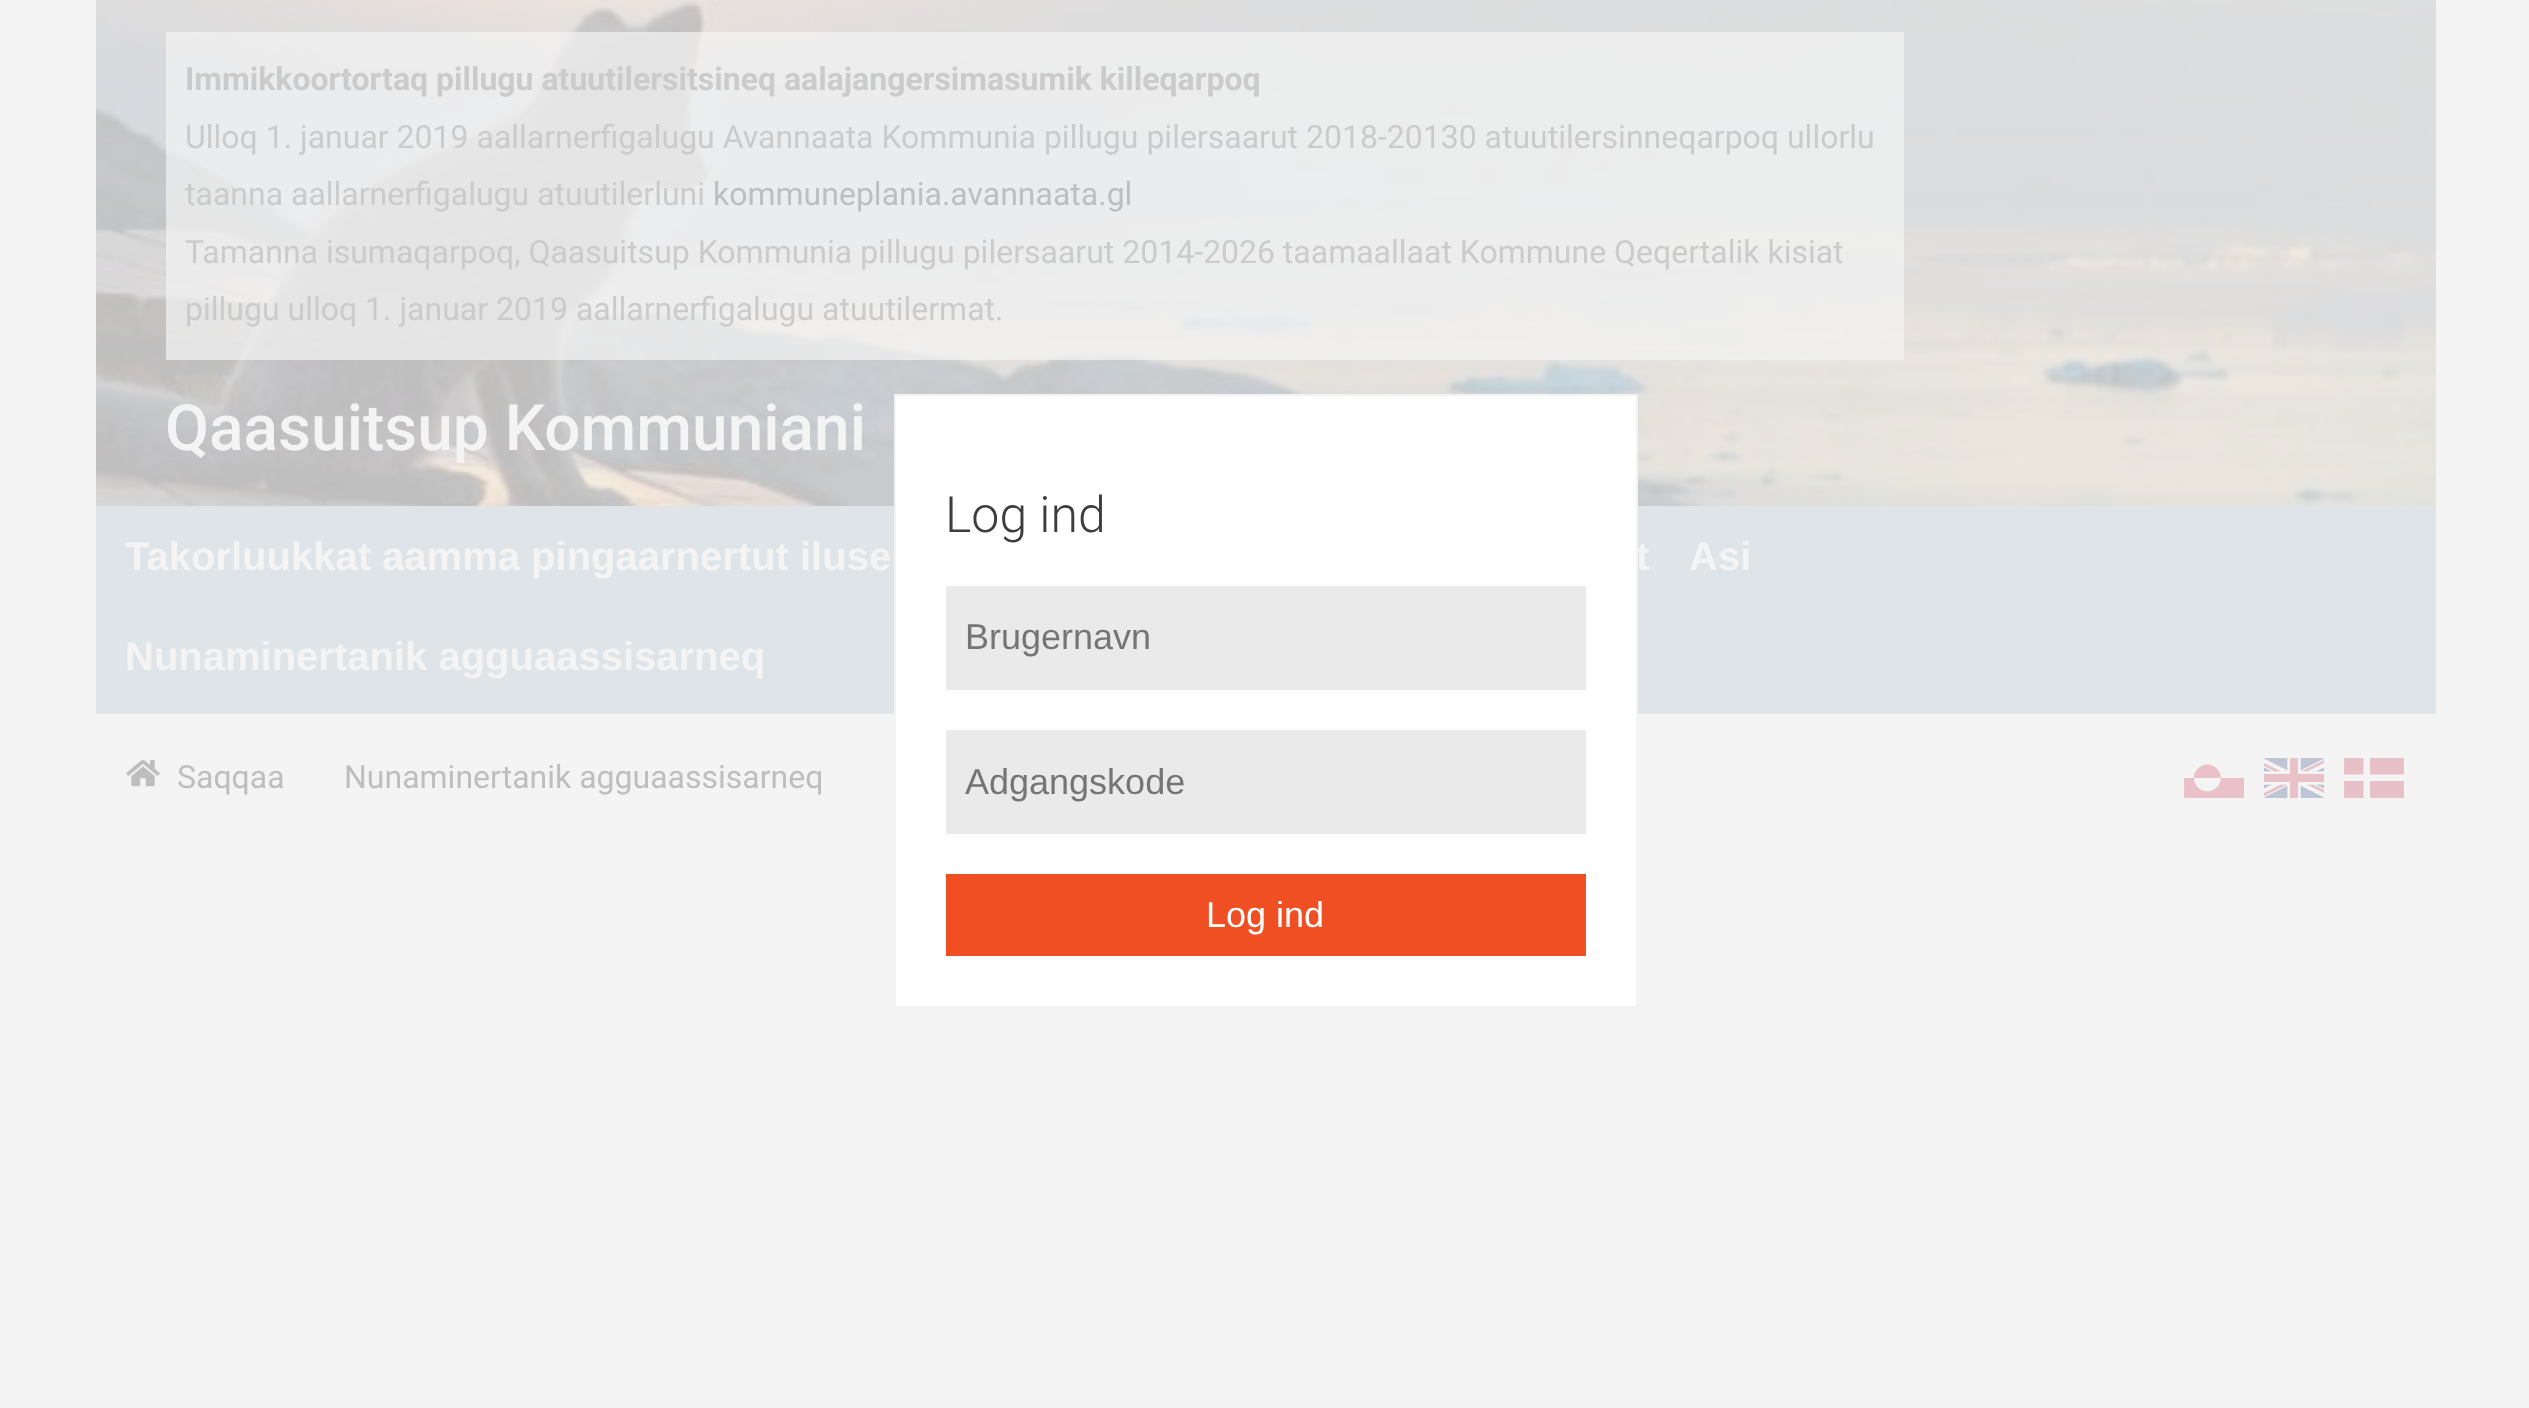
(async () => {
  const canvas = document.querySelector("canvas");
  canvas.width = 2529;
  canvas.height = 1408;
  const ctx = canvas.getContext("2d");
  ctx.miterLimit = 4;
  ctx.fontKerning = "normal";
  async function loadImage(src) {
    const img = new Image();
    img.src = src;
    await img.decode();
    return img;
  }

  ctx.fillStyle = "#f4f4f4";
  ctx.fillRect(0, 0, 2529, 1408);
  ctx.drawImage(await loadImage("img/1.png"), 96, 0, 2340, 506);
  ctx.fillStyle = "rgba(244, 244, 244, 0.7)";
  ctx.fillRect(166, 32, 1738, 328);
  ctx.fillStyle = "#dee4e8";
  ctx.fillRect(96, 506, 2340, 208);
  ctx.drawImage(await loadImage("img/2.png"), 126, 760, 34, 27);
  ctx.drawImage(await loadImage("img/3.png"), 2184, 764, 60, 34);
  ctx.drawImage(await loadImage("img/4.png"), 2264, 758, 60, 40);
  ctx.drawImage(await loadImage("img/5.png"), 2344, 758, 60, 40);
  ctx.font = "bold 32px Roboto";
  ctx.fillStyle = "#cbcbcb";
  ctx.fillText("Immikkoortortaq pillugu atuutilersitsineq aalajangersimasumik killeqarpoq", 185, 90);
  ctx.font = "32px Roboto";
  ctx.fillText("Ulloq 1. januar 2019 aallarnerfigalugu Avannaata Kommunia pillugu pilersaarut 2018-20130 atuutilersinneqarpoq ullorlu", 185, 148);
  ctx.fillText("taanna aallarnerfigalugu atuutilerluni", 185, 205);
  ctx.fillStyle = "#bebebe";
  ctx.fillText("kommuneplania.avannaata.gl", 713, 205);
  ctx.fillStyle = "#cbcbcb";
  ctx.fillText("Tamanna isumaqarpoq, Qaasuitsup Kommunia pillugu pilersaarut 2014-2026 taamaallaat Kommune Qeqertalik kisiat", 185, 263);
  ctx.fillText("pillugu ulloq 1. januar 2019 aallarnerfigalugu atuutilermat.", 185, 320);
  ctx.font = "500 64px Roboto";
  ctx.fillStyle = "#f4f4f4";
  ctx.fillText("Qaasuitsup Kommuniani", 165, 450);
  ctx.font = "bold 40px Liberation Sans";
  for (const [text, x, y] of [
    ["Takorluukkat aamma pingaarnertut iluse", 125, 570],
    ["t", 1636, 570],
    ["Asi", 1689, 570],
    ["Nunaminertanik agguaassisarneq", 125, 670],
  ]) {
    ctx.fillText(text, x, y);
  }
  ctx.font = "32px Roboto";
  ctx.fillStyle = "#bebebe";
  ctx.fillText("Saqqaa", 177, 788);
  ctx.fillText("Nunaminertanik agguaassisarneq", 344, 788);
  ctx.fillStyle = "#ffffff";
  ctx.beginPath();
  ctx.rect(895, 395, 742, 612);
  ctx.fill();
  ctx.strokeStyle = "#f3f3f3";
  ctx.lineWidth = 2;
  ctx.stroke();
  ctx.font = "300 50px Roboto";
  ctx.fillStyle = "#3d3d3d";
  ctx.fillText("Log ind", 945, 532);
  ctx.fillStyle = "#eaeaea";
  ctx.fillRect(946, 586, 640, 104);
  ctx.font = "36px Liberation Sans";
  ctx.fillStyle = "#757575";
  ctx.fillText("Brugernavn", 965, 649);
  ctx.fillStyle = "#eaeaea";
  ctx.fillRect(946, 730, 640, 104);
  ctx.fillStyle = "#757575";
  ctx.fillText("Adgangskode", 965, 794);
  ctx.fillStyle = "#f04e23";
  ctx.fillRect(946, 874, 640, 82);
  ctx.fillStyle = "#ffffff";
  ctx.fillText("Log ind", 1206, 927);
})();
